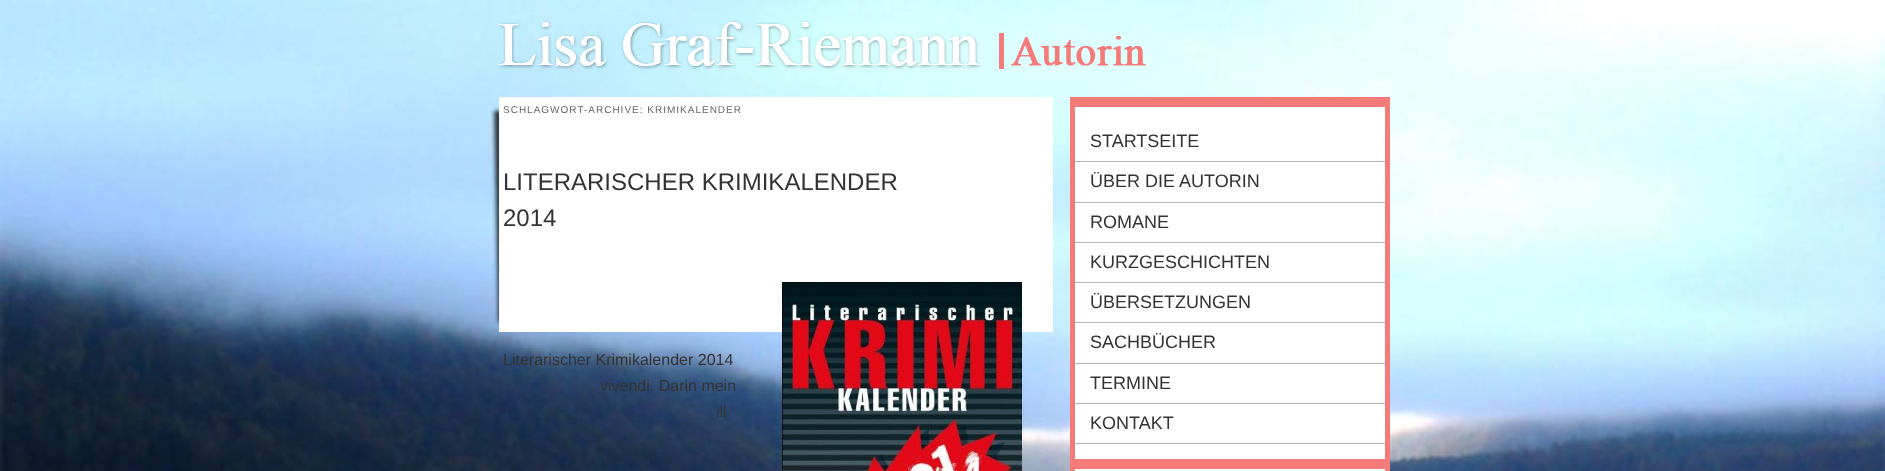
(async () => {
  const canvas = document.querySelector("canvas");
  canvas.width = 1885;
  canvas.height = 471;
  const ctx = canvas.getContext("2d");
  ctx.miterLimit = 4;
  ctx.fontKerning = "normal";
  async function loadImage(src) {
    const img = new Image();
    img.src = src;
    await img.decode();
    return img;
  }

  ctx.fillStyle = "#ffffff";
  ctx.fillRect(0, 0, 1885, 471);
  ctx.drawImage(await loadImage("img/1.png"), 0, 0, 1885, 471);
  ctx.drawImage(await loadImage("img/2.png"), 499, 20, 647, 50);
  ctx.drawImage(await loadImage("img/3.png"), 490, 97, 563, 235);
  ctx.drawImage(await loadImage("img/4.png"), 782, 282, 240, 189);
  for (const [x, y, w, h, color] of [
    [1070, 97, 320, 374, "#f57a7a"],
    [1075, 107, 310, 352, "#ffffff"],
    [1075, 161, 310, 1, "#b4b4b4"],
    [1075, 202, 310, 1, "#b4b4b4"],
    [1075, 242, 310, 1, "#b4b4b4"],
    [1075, 282, 310, 1, "#b4b4b4"],
    [1075, 322, 310, 1, "#b4b4b4"],
    [1075, 363, 310, 1, "#b4b4b4"],
    [1075, 403, 310, 1, "#b4b4b4"],
    [1075, 443, 310, 1, "#b4b4b4"],
    [1075, 469, 310, 2, "#ffffff"],
  ]) {
    ctx.fillStyle = color;
    ctx.fillRect(x, y, w, h);
  }
  ctx.letterSpacing = "1px";
  ctx.font = "10px Liberation Sans";
  ctx.fillStyle = "#666666";
  ctx.fillText("SCHLAGWORT-ARCHIVE: KRIMIKALENDER", 503, 113);
  ctx.letterSpacing = "0px";
  ctx.font = "24px Liberation Sans";
  ctx.fillStyle = "#333333";
  ctx.fillText("LITERARISCHER KRIMIKALENDER", 503, 190);
  ctx.fillText("2014", 503, 226);
  ctx.font = "16px Liberation Sans";
  for (const [text, x, y] of [
    ["Literarischer Krimikalender 2014", 503, 365],
    ["vivendi. Darin mein", 600, 391],
    ["ill", 716, 417],
  ]) {
    ctx.fillText(text, x, y);
  }
  ctx.font = "18px Liberation Sans";
  for (const [text, x, y] of [
    ["STARTSEITE", 1090, 147],
    ["ÜBER DIE AUTORIN", 1090, 187],
    ["ROMANE", 1090, 228],
    ["KURZGESCHICHTEN", 1090, 268],
    ["ÜBERSETZUNGEN", 1090, 308],
    ["SACHBÜCHER", 1090, 348],
    ["TERMINE", 1090, 389],
    ["KONTAKT", 1090, 429],
  ]) {
    ctx.fillText(text, x, y);
  }
})();
